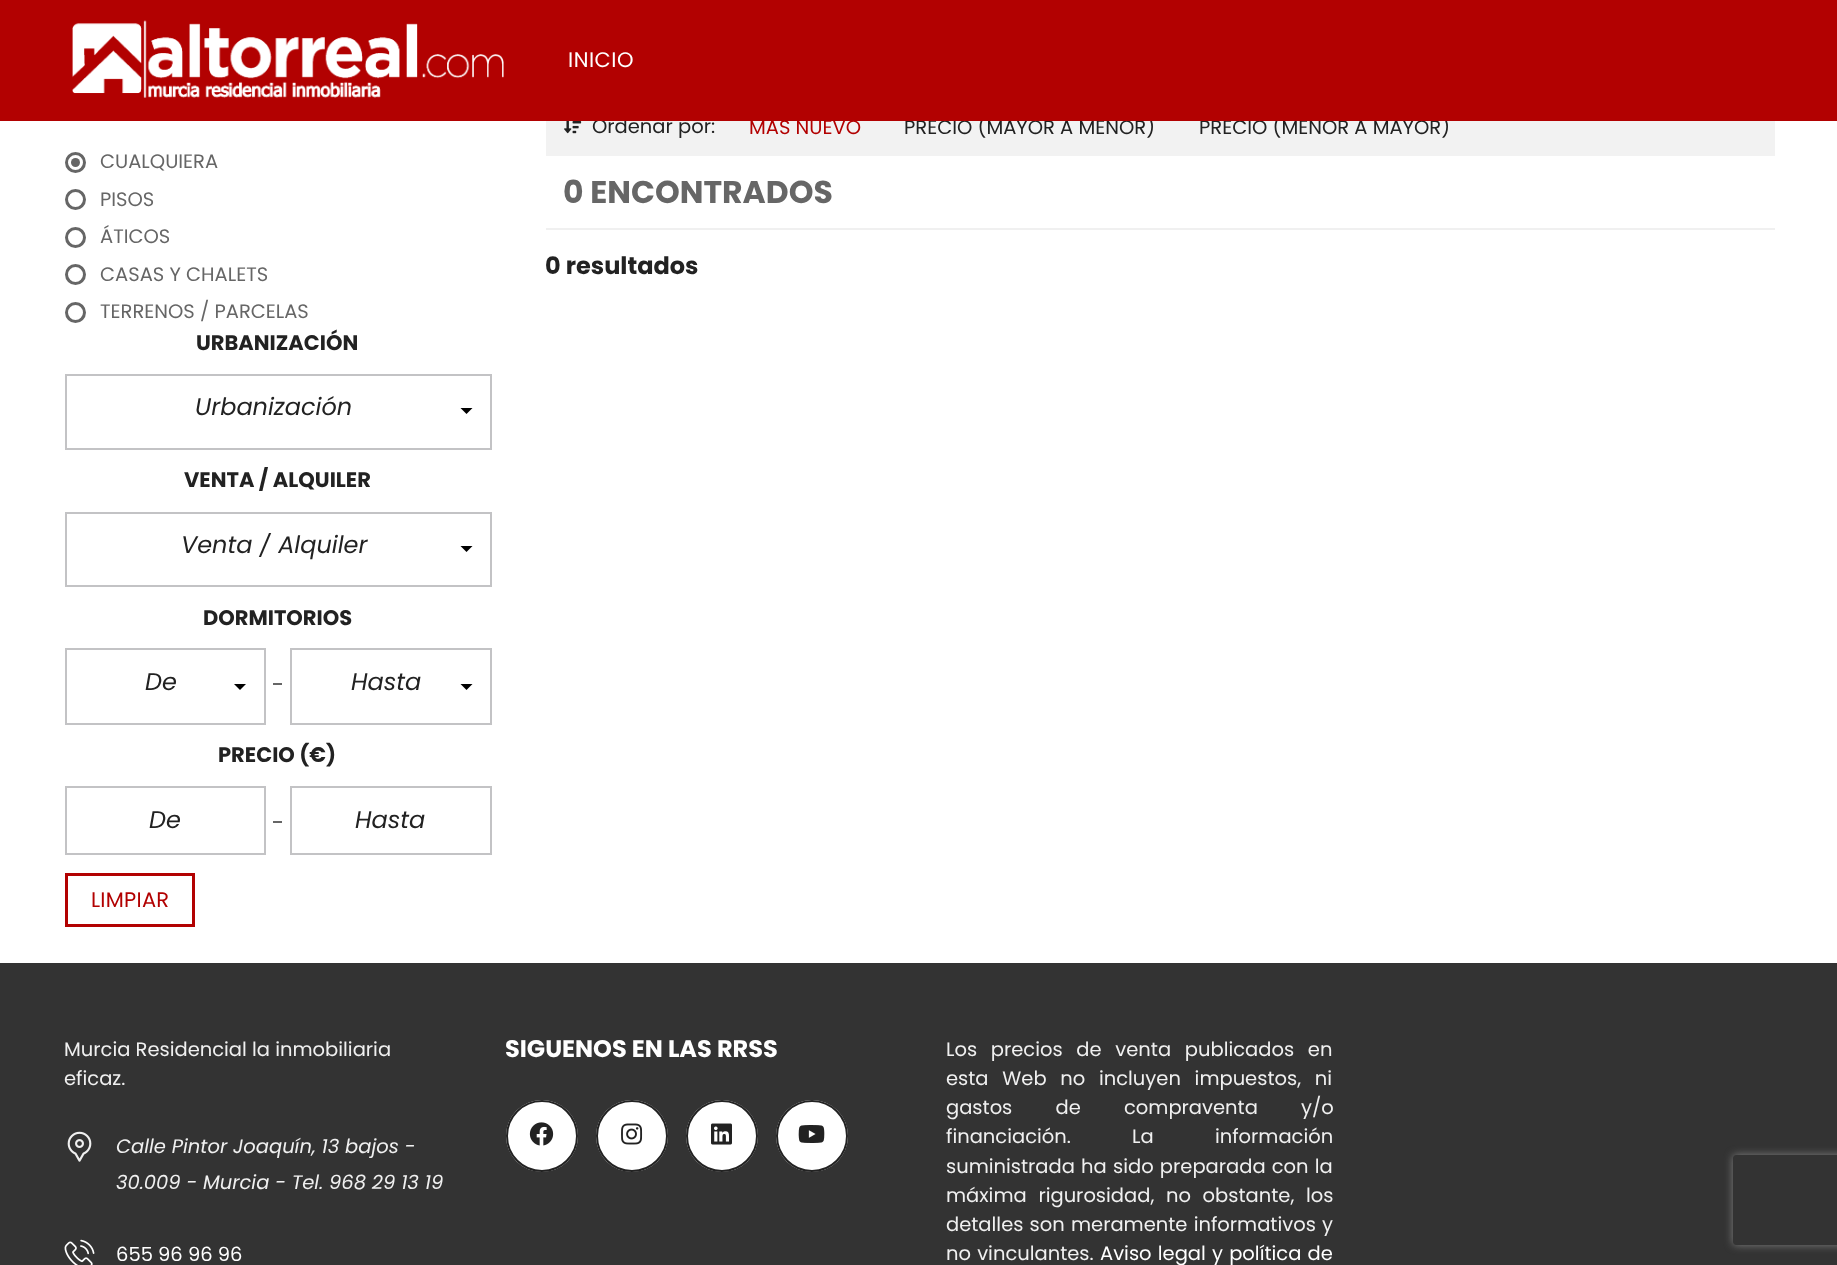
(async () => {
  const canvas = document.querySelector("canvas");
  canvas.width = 1837;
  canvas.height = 1265;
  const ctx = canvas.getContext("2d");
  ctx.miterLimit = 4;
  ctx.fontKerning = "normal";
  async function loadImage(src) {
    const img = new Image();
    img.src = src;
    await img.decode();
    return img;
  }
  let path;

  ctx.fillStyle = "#ffffff";
  ctx.fillRect(0, 0, 1837, 1265);
  ctx.fillStyle = "#666666";
  ctx.beginPath();
  ctx.arc(75.5, 162.5, 4.5, 0, Math.PI * 2);
  ctx.fill();
  ctx.beginPath();
  ctx.arc(75.5, 162.5, 9, 0, Math.PI * 2);
  ctx.strokeStyle = "#666666";
  ctx.lineWidth = 3;
  ctx.stroke();
  ctx.beginPath();
  ctx.arc(75.5, 199.5, 9, 0, Math.PI * 2);
  ctx.stroke();
  ctx.beginPath();
  ctx.arc(75.5, 237.5, 9, 0, Math.PI * 2);
  ctx.stroke();
  ctx.beginPath();
  ctx.arc(75.5, 274.5, 9, 0, Math.PI * 2);
  ctx.stroke();
  ctx.beginPath();
  ctx.arc(75.5, 312.5, 9, 0, Math.PI * 2);
  ctx.stroke();
  ctx.strokeStyle = "#c3c3c5";
  ctx.lineWidth = 2;
  ctx.strokeRect(66, 375, 425, 74);
  ctx.fillStyle = "#000000";
  path = new Path2D("M460.5 408H472.5L466.5 414Z");
  ctx.fill(path);
  ctx.strokeRect(66, 513, 425, 73);
  path = new Path2D("M460.5 546H472.5L466.5 552Z");
  ctx.fill(path);
  ctx.strokeRect(66, 649, 199, 75);
  path = new Path2D("M234 684H246L240 690Z");
  ctx.fill(path);
  ctx.fillStyle = "#666666";
  ctx.fillRect(273, 683, 9, 2);
  ctx.strokeRect(291, 649, 200, 75);
  ctx.fillStyle = "#000000";
  path = new Path2D("M460.5 684H472.5L466.5 690Z");
  ctx.fill(path);
  ctx.strokeRect(66, 787, 199, 67);
  ctx.fillStyle = "#666666";
  ctx.fillRect(273, 821, 9, 2);
  ctx.strokeRect(291, 787, 200, 67);
  ctx.strokeStyle = "#b20101";
  ctx.lineWidth = 3;
  ctx.strokeRect(66.5, 874.5, 127, 51);
  ctx.fillStyle = "#f2f2f2";
  ctx.fillRect(546, 121, 1229, 35);
  ctx.drawImage(await loadImage("img/2.png"), 564, 121, 18, 13);
  ctx.fillStyle = "#f0f0f0";
  ctx.fillRect(546, 228, 1229, 2);
  ctx.fillStyle = "#333333";
  ctx.fillRect(0, 963, 1837, 302);
  ctx.drawImage(await loadImage("img/3.png"), 67, 1131, 25, 31);
  ctx.drawImage(await loadImage("img/4.png"), 64, 1239, 31, 26);
  ctx.fillStyle = "#ffffff";
  ctx.beginPath();
  ctx.arc(542, 1136, 36, 0, Math.PI * 2);
  ctx.fill();
  ctx.drawImage(await loadImage("img/5.png"), 529, 1122, 25, 24);
  ctx.beginPath();
  ctx.arc(542, 1136, 35, 0, Math.PI * 2);
  ctx.strokeStyle = "#222222";
  ctx.lineWidth = 2;
  ctx.stroke();
  ctx.beginPath();
  ctx.arc(632, 1136, 36, 0, Math.PI * 2);
  ctx.fill();
  ctx.drawImage(await loadImage("img/6.png"), 621, 1123, 22, 22);
  ctx.beginPath();
  ctx.arc(632, 1136, 35, 0, Math.PI * 2);
  ctx.stroke();
  ctx.beginPath();
  ctx.arc(722, 1136, 36, 0, Math.PI * 2);
  ctx.fill();
  ctx.drawImage(await loadImage("img/7.png"), 711, 1123, 21, 22);
  ctx.beginPath();
  ctx.arc(722, 1136, 35, 0, Math.PI * 2);
  ctx.stroke();
  ctx.beginPath();
  ctx.arc(812, 1136, 36, 0, Math.PI * 2);
  ctx.fill();
  ctx.drawImage(await loadImage("img/8.png"), 798, 1125, 27, 18);
  ctx.beginPath();
  ctx.arc(812, 1136, 35, 0, Math.PI * 2);
  ctx.stroke();
  ctx.save();
  path = new Path2D("M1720 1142H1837V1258H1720ZM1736 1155H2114C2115.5 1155 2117 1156.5 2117 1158V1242C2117 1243.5 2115.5 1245 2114 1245H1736C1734.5 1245 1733 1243.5 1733 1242V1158C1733 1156.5 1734.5 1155 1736 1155Z");
  ctx.clip(path, "evenodd");
  ctx.fillStyle = "#808080";
  ctx.filter = "blur(4px)";
  ctx.beginPath();
  ctx.roundRect(1733, 1155, 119, 90, 3);
  ctx.fill();
  ctx.filter = "none";
  ctx.restore();
  ctx.font = "19.5px Poppins";
  ctx.fillStyle = "#666666";
  for (const [text, x, y] of [
    ["CUALQUIERA", 100, 168],
    ["PISOS", 100, 206],
    ["ÁTICOS", 100, 243],
    ["CASAS Y CHALETS", 100, 281],
    ["TERRENOS / PARCELAS", 100, 318],
  ]) {
    ctx.fillText(text, x, y);
  }
  ctx.font = "bold 21px Poppins";
  ctx.fillStyle = "#222222";
  ctx.fillText("URBANIZACIÓN", 196, 350);
  ctx.font = "italic 24px Poppins";
  ctx.fillText("Urbanización", 195, 415);
  ctx.font = "bold 21px Poppins";
  ctx.fillText("VENTA / ALQUILER", 184, 487);
  ctx.save();
  ctx.beginPath();
  ctx.rect(96, 533, 357, 27);
  ctx.clip();
  ctx.font = "italic 24px Poppins";
  ctx.fillText("Venta / Alquiler", 181, 553);
  ctx.restore();
  ctx.fillText("DORMITORIOS", 203, 625);
  ctx.font = "italic 24px Poppins";
  ctx.fillText("De", 145, 690);
  ctx.fillText("Hasta", 351, 690);
  ctx.font = "bold 21px Poppins";
  ctx.fillText("PRECIO (€)", 218, 762);
  ctx.font = "italic 24px Poppins";
  ctx.fillText("De", 149, 828);
  ctx.fillText("Hasta", 355, 828);
  ctx.letterSpacing = "0.25px";
  ctx.font = "21px Poppins";
  ctx.fillStyle = "#b20101";
  ctx.fillText("LIMPIAR", 91, 907);
  ctx.letterSpacing = "0px";
  ctx.font = "19.5px Poppins";
  ctx.fillStyle = "#222222";
  ctx.fillText("Ordenar por:", 592, 133);
  ctx.fillStyle = "#b20101";
  ctx.fillText("MÁS NUEVO", 749, 134);
  ctx.fillStyle = "#222222";
  ctx.fillText("PRECIO (MAYOR A MENOR)", 904, 134);
  ctx.fillText("PRECIO (MENOR A MAYOR)", 1199, 134);
  ctx.fillStyle = "#b20101";
  ctx.fillRect(0, 0, 1837, 121);
  ctx.drawImage(await loadImage("img/1.png"), 72, 20, 432, 78);
  ctx.letterSpacing = "0.5px";
  ctx.font = "21px Poppins";
  ctx.fillStyle = "#ffffff";
  ctx.fillText("INICIO", 568, 67);
  ctx.letterSpacing = "0px";
  ctx.font = "bold 31.5px Poppins";
  ctx.fillStyle = "#666666";
  ctx.fillText("0 ENCONTRADOS", 563, 203);
  ctx.font = "bold 24px Poppins";
  ctx.fillStyle = "#222222";
  ctx.fillText("0 resultados", 545, 274);
  ctx.font = "19.5px Poppins";
  ctx.fillStyle = "#f0f0f0";
  ctx.fillText("Murcia Residencial la inmobiliaria", 64, 1056);
  ctx.fillText("eficaz.", 64, 1085);
  ctx.font = "italic 19.5px Poppins";
  ctx.fillText("Calle Pintor Joaquín, 13 bajos -", 116, 1153);
  ctx.fillText("30.009 - Murcia - Tel. 968 29 13 19", 116, 1189);
  ctx.font = "19.5px Poppins";
  ctx.fillStyle = "#ffffff";
  ctx.fillText("655 96 96 96", 116, 1261);
  ctx.font = "bold 24px Poppins";
  ctx.fillText("SIGUENOS EN LAS RRSS", 505, 1057);
  ctx.wordSpacing = "8.5px";
  ctx.font = "19.5px Poppins";
  ctx.fillStyle = "#f0f0f0";
  ctx.fillText("Los precios de venta publicados en", 946, 1056);
  ctx.fillText("esta Web no incluyen impuestos, ni", 946, 1085);
  ctx.wordSpacing = "38px";
  ctx.fillText("gastos de compraventa y/o", 946, 1114);
  ctx.wordSpacing = "56px";
  ctx.fillText("financiación. La información", 946, 1143);
  ctx.wordSpacing = "1px";
  ctx.fillText("suministrada ha sido preparada con la", 946, 1173);
  ctx.wordSpacing = "6.5px";
  ctx.fillText("máxima rigurosidad, no obstante, los", 946, 1202);
  ctx.wordSpacing = "1px";
  ctx.fillText("detalles son meramente informativos y", 946, 1231);
  ctx.fillText("no vinculantes.", 946, 1260);
  ctx.fillStyle = "#ffffff";
  ctx.fillText("Aviso legal y política de", 1100, 1260);
})();
